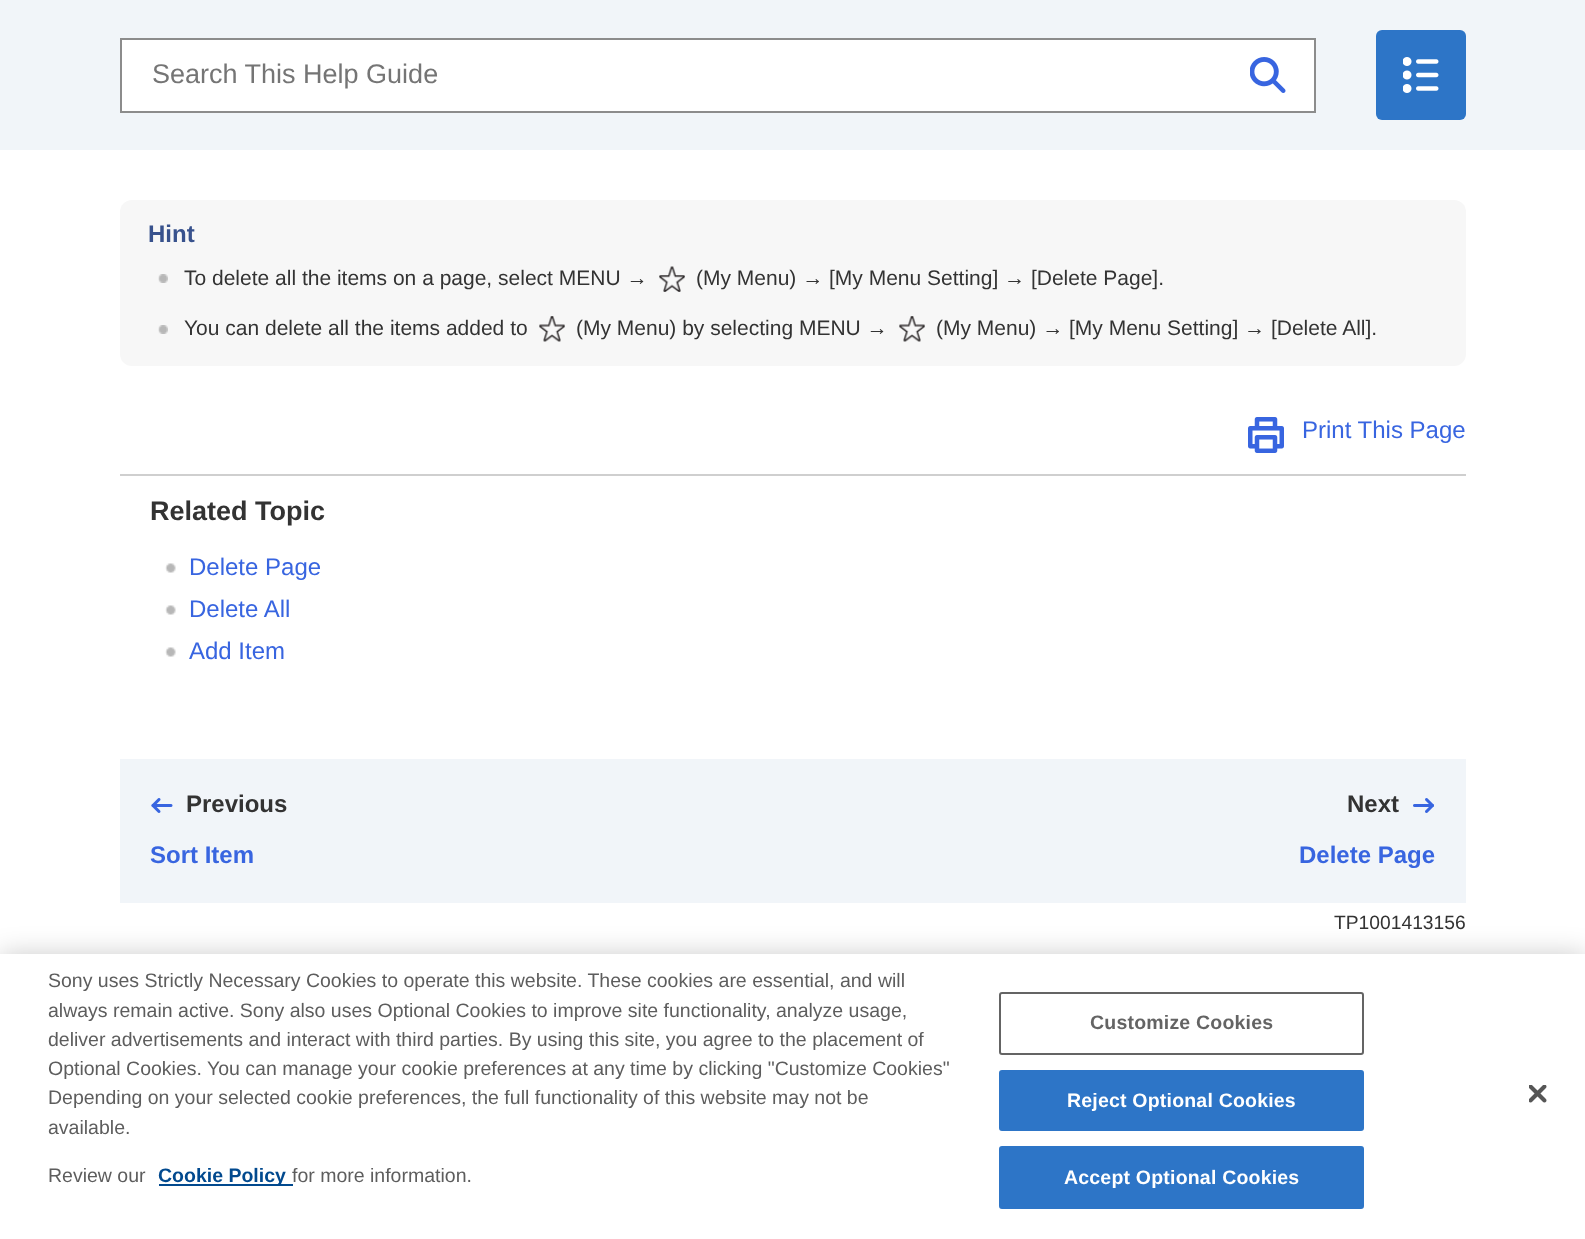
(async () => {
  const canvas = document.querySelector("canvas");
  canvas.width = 1585;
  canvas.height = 1239;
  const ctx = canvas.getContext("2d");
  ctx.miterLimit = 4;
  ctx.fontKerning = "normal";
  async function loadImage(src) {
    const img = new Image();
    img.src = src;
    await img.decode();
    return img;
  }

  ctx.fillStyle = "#ffffff";
  ctx.fillRect(0, 0, 1585, 1239);
  ctx.fillStyle = "#f1f5f9";
  ctx.fillRect(0, 0, 1585, 150);
  ctx.fillStyle = "#ffffff";
  ctx.beginPath();
  ctx.rect(121, 39, 1194, 73);
  ctx.fill();
  ctx.strokeStyle = "#8c8c8c";
  ctx.lineWidth = 2;
  ctx.stroke();
  ctx.drawImage(await loadImage("img/1.png"), 1250, 57, 36, 36);
  ctx.fillStyle = "#2d75c7";
  ctx.beginPath();
  ctx.roundRect(1376, 30, 90, 90, 6);
  ctx.fill();
  ctx.drawImage(await loadImage("img/2.png"), 1403, 57, 36, 36);
  ctx.fillStyle = "#f7f7f7";
  ctx.beginPath();
  ctx.roundRect(120, 200, 1346, 166, 12);
  ctx.fill();
  ctx.drawImage(await loadImage("img/3.png"), 158, 274, 10, 9);
  ctx.drawImage(await loadImage("img/4.png"), 659, 266, 26, 26);
  ctx.drawImage(await loadImage("img/3.png"), 158, 325, 10, 9);
  ctx.drawImage(await loadImage("img/5.png"), 539, 316, 26, 26);
  ctx.drawImage(await loadImage("img/5.png"), 899, 316, 26, 26);
  ctx.drawImage(await loadImage("img/6.png"), 1248, 417, 36, 36);
  ctx.fillStyle = "#cfcfcf";
  ctx.fillRect(120, 474, 1346, 2);
  ctx.drawImage(await loadImage("img/7.png"), 165, 563, 11, 10);
  ctx.drawImage(await loadImage("img/7.png"), 165, 605, 11, 10);
  ctx.drawImage(await loadImage("img/7.png"), 165, 647, 11, 10);
  ctx.fillStyle = "#f1f5f9";
  ctx.fillRect(120, 759, 1346, 144);
  ctx.drawImage(await loadImage("img/8.png"), 151, 798, 22, 15);
  ctx.drawImage(await loadImage("img/9.png"), 1413, 798, 21, 15);
  ctx.fillStyle = "rgba(0, 0, 0, 0.2)";
  ctx.filter = "blur(13.5px)";
  ctx.beginPath();
  ctx.rect(0, 954, 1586, 285);
  ctx.fill();
  ctx.filter = "none";
  ctx.fillStyle = "#ffffff";
  ctx.fillRect(0, 954, 1585, 285);
  ctx.fillStyle = "#01498e";
  ctx.fillRect(159, 1184, 134, 2);
  ctx.beginPath();
  ctx.roundRect(1000, 993, 363, 61, 2);
  ctx.strokeStyle = "#646464";
  ctx.stroke();
  ctx.fillStyle = "#2d75c7";
  ctx.beginPath();
  ctx.roundRect(1000, 1071, 363, 59, 2);
  ctx.fill();
  ctx.strokeStyle = "#2d75c7";
  ctx.stroke();
  ctx.beginPath();
  ctx.roundRect(1000, 1147, 363, 61, 2);
  ctx.fill();
  ctx.stroke();
  ctx.drawImage(await loadImage("img/10.png"), 1529, 1085, 18, 18);
  ctx.font = "27px Liberation Sans";
  ctx.fillStyle = "#757575";
  ctx.fillText("Search This Help Guide", 152, 83);
  ctx.font = "bold 24px Liberation Sans";
  ctx.fillStyle = "#38528d";
  ctx.fillText("Hint", 148, 242);
  ctx.font = "21px Liberation Sans";
  ctx.fillStyle = "#333333";
  for (const [text, x, y] of [
    ["To delete all the items on a page, select MENU →", 184, 285],
    ["(My Menu) → [My Menu Setting] → [Delete Page].", 696, 285],
    ["You can delete all the items added to", 184, 335],
    ["(My Menu) by selecting MENU →", 576, 335],
    ["(My Menu) → [My Menu Setting] → [Delete All].", 936, 335],
  ]) {
    ctx.fillText(text, x, y);
  }
  ctx.font = "24px Liberation Sans";
  ctx.fillStyle = "#3865e0";
  ctx.fillText("Print This Page", 1302, 438);
  ctx.font = "bold 27px Liberation Sans";
  ctx.fillStyle = "#333333";
  ctx.fillText("Related Topic", 150, 520);
  ctx.font = "24px Liberation Sans";
  ctx.fillStyle = "#3865e0";
  for (const [text, x, y] of [
    ["Delete Page", 189, 575],
    ["Delete All", 189, 617],
    ["Add Item", 189, 659],
  ]) {
    ctx.fillText(text, x, y);
  }
  ctx.font = "bold 24px Liberation Sans";
  ctx.fillStyle = "#333333";
  ctx.fillText("Previous", 186, 812);
  ctx.fillStyle = "#3865e0";
  ctx.fillText("Sort Item", 150, 863);
  ctx.fillStyle = "#333333";
  ctx.fillText("Next", 1347, 812);
  ctx.fillStyle = "#3865e0";
  ctx.fillText("Delete Page", 1299, 863);
  ctx.font = "19.25px Liberation Sans";
  ctx.fillStyle = "#333333";
  ctx.fillText("TP1001413156", 1334, 929);
  ctx.font = "19.5px Liberation Sans";
  ctx.fillStyle = "#5d5d5d";
  for (const [text, x, y] of [
    ["Sony uses Strictly Necessary Cookies to operate this website. These cookies are essential, and will", 48, 987],
    ["always remain active. Sony also uses Optional Cookies to improve site functionality, analyze usage,", 48, 1017],
    ["deliver advertisements and interact with third parties. By using this site, you agree to the placement of", 48, 1046],
    ["Optional Cookies. You can manage your cookie preferences at any time by clicking \"Customize Cookies\"", 48, 1075],
    ["Depending on your selected cookie preferences, the full functionality of this website may not be", 48, 1104],
    ["available.", 48, 1134],
    ["Review our", 48, 1182],
  ]) {
    ctx.fillText(text, x, y);
  }
  ctx.font = "bold 19.5px Liberation Sans";
  ctx.fillStyle = "#01498e";
  ctx.fillText("Cookie Policy", 158, 1182);
  ctx.font = "19.5px Liberation Sans";
  ctx.fillStyle = "#5d5d5d";
  ctx.fillText("for more information.", 292, 1182);
  ctx.letterSpacing = "0.2px";
  ctx.font = "bold 19.5px Liberation Sans";
  ctx.fillStyle = "#646464";
  ctx.fillText("Customize Cookies", 1090, 1029);
  ctx.fillStyle = "#ffffff";
  ctx.fillText("Reject Optional Cookies", 1067, 1107);
  ctx.fillText("Accept Optional Cookies", 1064, 1184);
})();
